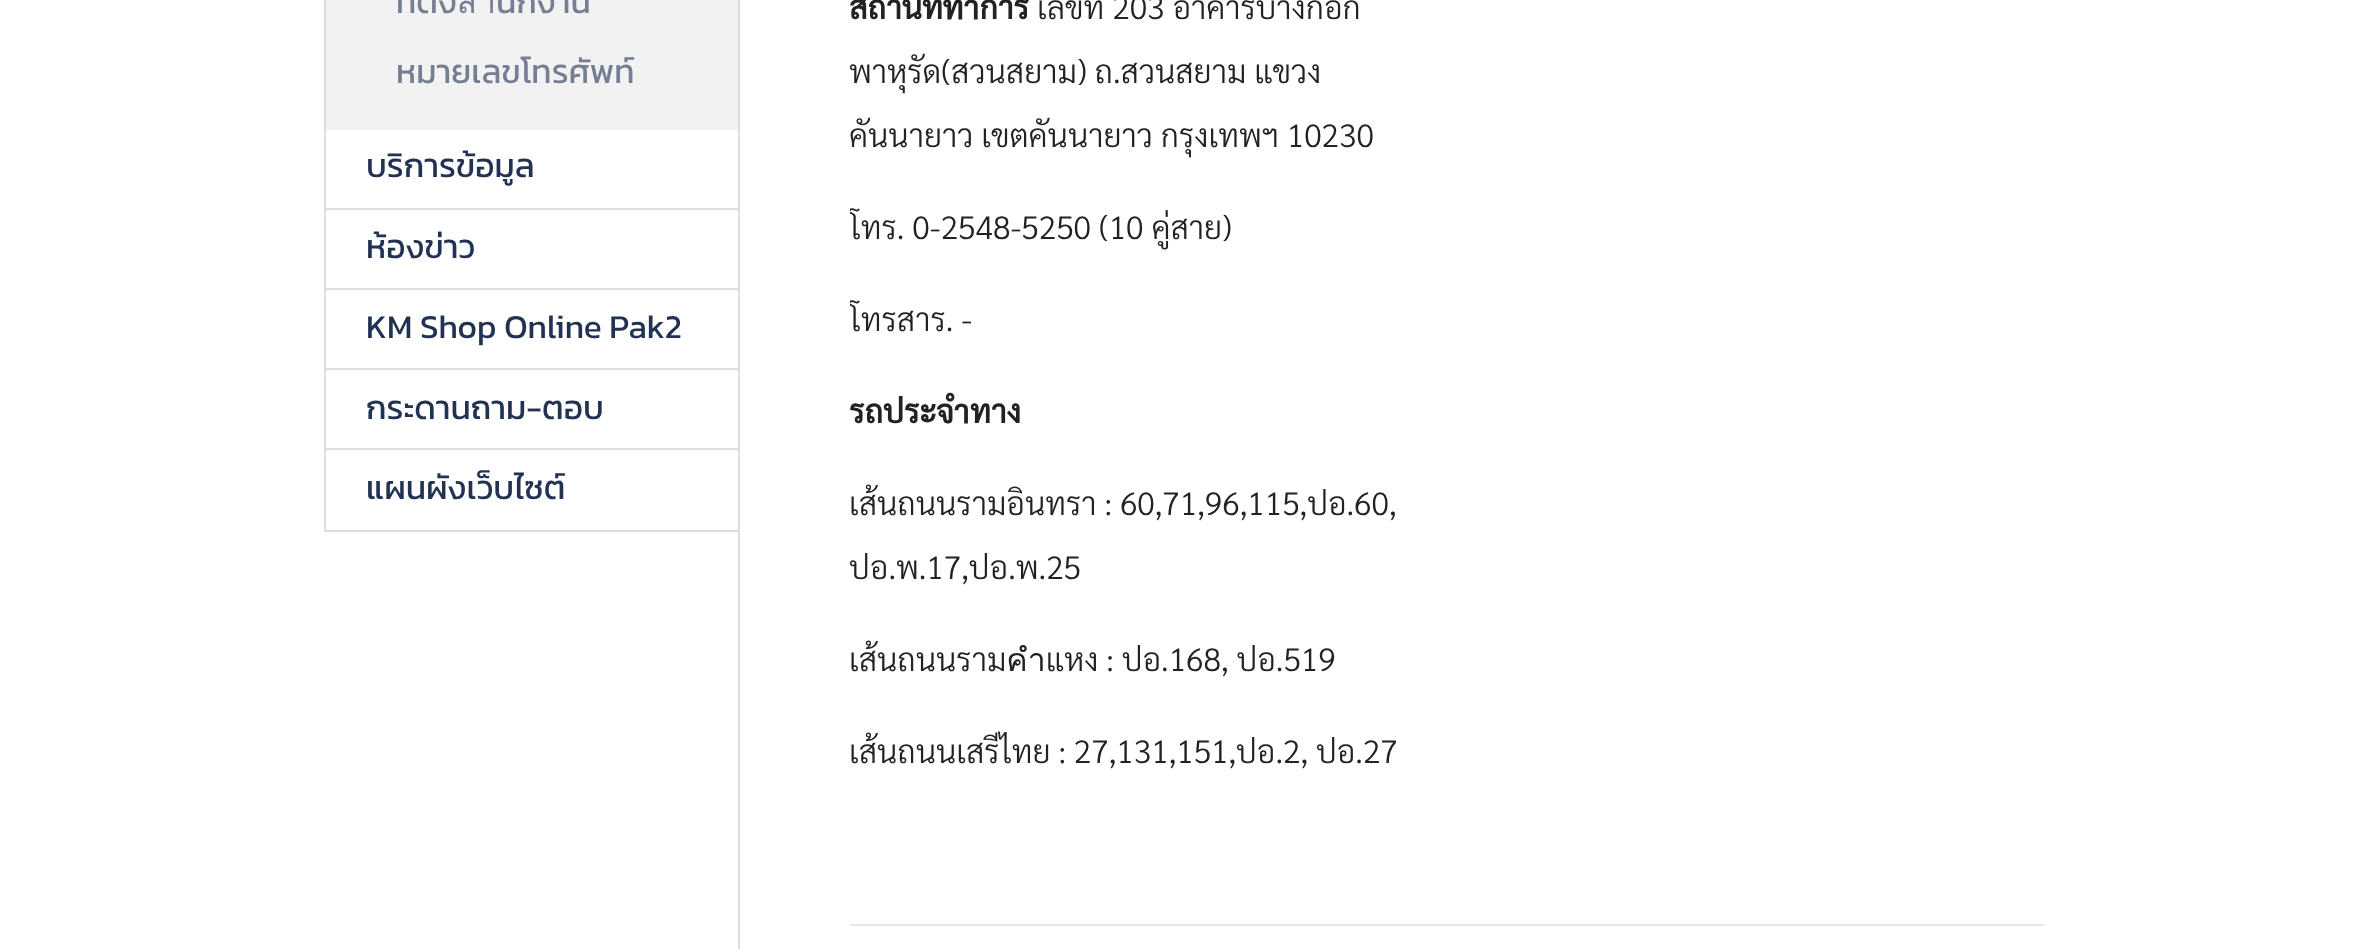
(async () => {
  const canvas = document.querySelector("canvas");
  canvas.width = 2368;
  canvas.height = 949;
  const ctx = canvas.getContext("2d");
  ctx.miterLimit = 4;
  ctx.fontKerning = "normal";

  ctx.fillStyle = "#ffffff";
  ctx.fillRect(0, 0, 2368, 949);
  for (const [x, y, w, h, color] of [
    [738, 0, 2, 949, "#dddddd"],
    [324, 0, 2, 532, "#dddddd"],
    [326, 0, 412, 130, "#f2f2f2"],
    [326, 208, 412, 2, "#dddddd"],
    [326, 288, 412, 2, "#dddddd"],
    [326, 368, 412, 2, "#dddddd"],
    [326, 448, 412, 2, "#dddddd"],
    [326, 530, 412, 2, "#dddddd"],
    [850, 924, 1194, 2, "#e6e6e6"],
  ]) {
    ctx.fillStyle = color;
    ctx.fillRect(x, y, w, h);
  }
  ctx.font = "33.5px Kanit";
  ctx.fillStyle = "#757f93";
  ctx.fillText("ที่ตั้งสำนักงาน", 396, 13);
  ctx.fillText("หมายเลขโทรศัพท์", 396, 83);
  ctx.fillStyle = "#213253";
  for (const [text, x, y] of [
    ["บริการข้อมูล", 366, 177],
    ["ห้องข่าว", 366, 258],
    ["KM Shop Online Pak2", 366, 338],
    ["กระดานถาม-ตอบ", 366, 419],
    ["แผนผังเว็บไซต์", 366, 499],
  ]) {
    ctx.fillText(text, x, y);
  }
  ctx.font = "bold 32px Sarabun";
  ctx.fillStyle = "#222222";
  ctx.fillText("สถานที่ทำการ", 849, 19);
  ctx.font = "300 32px Sarabun";
  ctx.fillText("เลขที่ 203 อาคารบางกอก", 1037, 19);
  ctx.fillText("พาหุรัด(สวนสยาม) ถ.สวนสยาม แขวง", 849, 83);
  ctx.save();
  ctx.beginPath();
  ctx.rect(850, 0, 566, 812);
  ctx.clip();
  for (const [text, x, y] of [
    ["คันนายาว เขตคันนายาว กรุงเทพฯ 10230", 849, 147],
    ["โทร. 0-2548-5250 (10 คู่สาย)", 849, 239],
    ["โทรสาร. -", 849, 331],
  ]) {
    ctx.fillText(text, x, y);
  }
  ctx.restore();
  ctx.font = "bold 32px Sarabun";
  ctx.fillText("รถประจำทาง", 849, 423);
  ctx.save();
  ctx.beginPath();
  ctx.rect(850, 0, 566, 812);
  ctx.clip();
  ctx.font = "300 32px Sarabun";
  ctx.fillText("เส้นถนนรามอินทรา : 60,71,96,115,ปอ.60,", 849, 515);
  ctx.restore();
  ctx.font = "300 32px Sarabun";
  ctx.fillText("ปอ.พ.17,ปอ.พ.25", 849, 579);
  ctx.save();
  ctx.beginPath();
  ctx.rect(850, 0, 566, 812);
  ctx.clip();
  ctx.fillText("เส้นถนนรามคำแหง : ปอ.168, ปอ.519", 849, 671);
  ctx.fillText("เส้นถนนเสรีไทย : 27,131,151,ปอ.2, ปอ.27", 849, 763);
  ctx.restore();
})();
